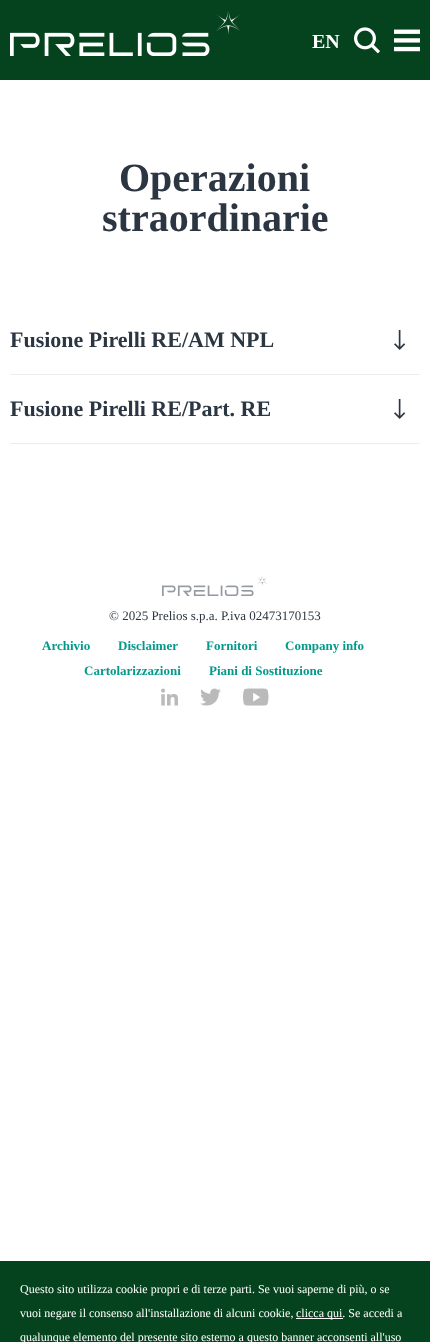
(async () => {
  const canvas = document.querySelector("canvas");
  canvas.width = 430;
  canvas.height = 1342;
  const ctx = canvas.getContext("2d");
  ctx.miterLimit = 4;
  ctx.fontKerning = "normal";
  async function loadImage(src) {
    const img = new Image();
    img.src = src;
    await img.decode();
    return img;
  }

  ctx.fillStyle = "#ffffff";
  ctx.fillRect(0, 0, 430, 1342);
  ctx.fillStyle = "#05431e";
  ctx.fillRect(0, 0, 430, 80);
  ctx.drawImage(await loadImage("img/1.png"), 10, 11, 231, 45);
  ctx.drawImage(await loadImage("img/2.png"), 354, 27, 26, 27);
  ctx.drawImage(await loadImage("img/3.png"), 394, 29, 26, 23);
  ctx.fillStyle = "#ededed";
  ctx.fillRect(10, 374, 410, 1);
  ctx.drawImage(await loadImage("img/4.png"), 394, 330, 12, 20);
  ctx.fillRect(10, 443, 410, 1);
  ctx.drawImage(await loadImage("img/4.png"), 394, 399, 12, 20);
  ctx.drawImage(await loadImage("img/5.png"), 162, 575, 105, 21);
  ctx.drawImage(await loadImage("img/6.png"), 161, 688, 17, 18);
  ctx.drawImage(await loadImage("img/7.png"), 200, 688, 21, 18);
  ctx.drawImage(await loadImage("img/8.png"), 243, 688, 26, 18);
  ctx.fillStyle = "#05431e";
  ctx.fillRect(0, 1261, 430, 81);
  ctx.fillStyle = "#ffffff";
  ctx.fillRect(296, 1318, 47, 1);
  ctx.font = "bold 20px Liberation Serif";
  ctx.fillText("EN", 312, 48);
  ctx.font = "bold 40px Liberation Serif";
  ctx.fillStyle = "#2c3643";
  ctx.fillText("Operazioni", 119, 191);
  ctx.fillText("straordinarie", 102, 231);
  ctx.font = "bold 22px Liberation Serif";
  ctx.fillText("Fusione Pirelli RE/AM NPL", 10, 347);
  ctx.fillText("Fusione Pirelli RE/Part. RE", 10, 416);
  ctx.font = "13px Liberation Serif";
  ctx.fillText("© 2025 Prelios s.p.a. P.iva 02473170153", 109, 620);
  ctx.font = "bold 13px Liberation Serif";
  ctx.fillStyle = "#04998a";
  for (const [text, x, y] of [
    ["Archivio", 42, 650],
    ["Disclaimer", 118, 650],
    ["Fornitori", 206, 650],
    ["Company info", 285, 650],
    ["Cartolarizzazioni", 84, 675],
    ["Piani di Sostituzione", 209, 675],
  ]) {
    ctx.fillText(text, x, y);
  }
  ctx.font = "12px Liberation Serif";
  ctx.fillStyle = "#ffffff";
  for (const [text, x, y] of [
    ["Questo sito utilizza cookie propri e di terze parti. Se vuoi saperne di più, o se", 20, 1293],
    ["vuoi negare il consenso all'installazione di alcuni cookie,", 20, 1317],
    ["clicca qui. Se accedi a", 296, 1317],
    ["qualunque elemento del presente sito esterno a questo banner acconsenti all'uso", 20, 1341],
  ]) {
    ctx.fillText(text, x, y);
  }
})();
